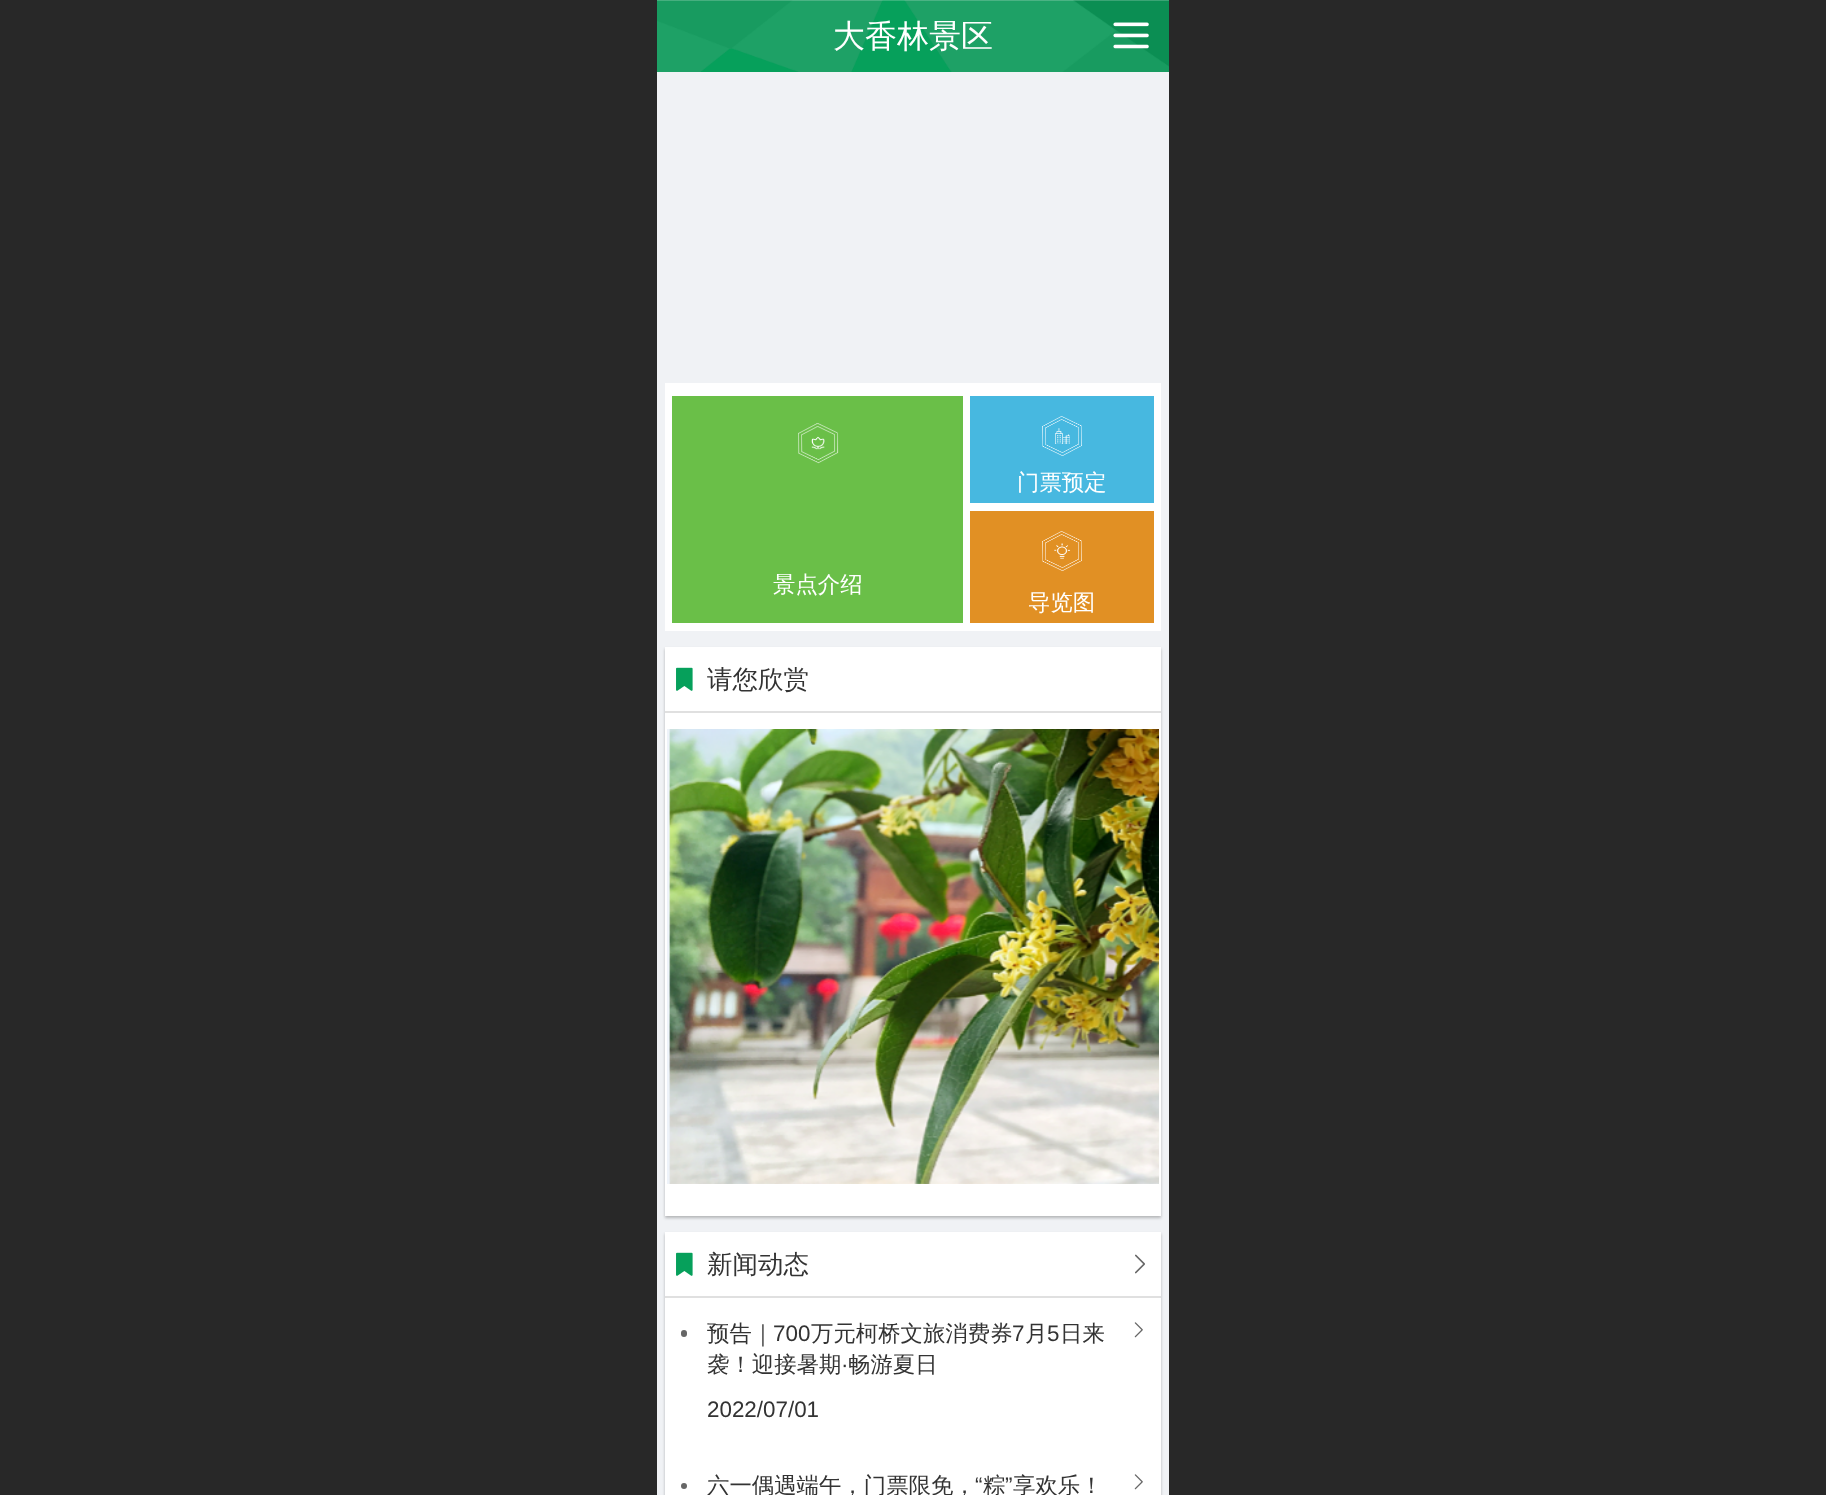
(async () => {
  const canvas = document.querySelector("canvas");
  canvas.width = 1826;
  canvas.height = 1495;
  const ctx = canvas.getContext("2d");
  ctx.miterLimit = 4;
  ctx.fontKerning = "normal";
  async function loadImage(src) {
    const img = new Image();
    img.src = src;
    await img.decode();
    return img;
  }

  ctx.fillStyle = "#f0f2f5";
  ctx.fillRect(0, 0, 1826, 1495);
  ctx.fillStyle = "#282828";
  ctx.fillRect(0, 0, 657, 1495);
  ctx.fillStyle = "#06a05b";
  ctx.fillRect(657, 0, 512, 72);
  ctx.drawImage(await loadImage("img/1.png"), 657, 0, 512, 72);
  ctx.fillStyle = "rgba(255, 255, 255, 0.2)";
  ctx.fillRect(657, 0, 512, 1);
  ctx.drawImage(await loadImage("img/2.png"), 1113, 22, 36, 27);
  ctx.fillStyle = "#ffffff";
  ctx.fillRect(665, 383, 496, 248);
  ctx.fillStyle = "#47b8e0";
  ctx.fillRect(970, 396, 184, 107);
  ctx.drawImage(await loadImage("img/3.png"), 1042, 416, 40, 40);
  ctx.fillStyle = "#6abf48";
  ctx.fillRect(672, 396, 291, 227);
  ctx.drawImage(await loadImage("img/4.png"), 798, 423, 41, 41);
  ctx.fillStyle = "#e19024";
  ctx.fillRect(970, 511, 184, 112);
  ctx.drawImage(await loadImage("img/5.png"), 1042, 531, 40, 40);
  ctx.fillStyle = "rgba(0, 0, 0, 0.25)";
  ctx.filter = "blur(1.5px)";
  ctx.beginPath();
  ctx.rect(665, 649, 496, 569);
  ctx.fill();
  ctx.filter = "none";
  ctx.fillStyle = "#ffffff";
  ctx.fillRect(665, 647, 496, 64);
  ctx.fillStyle = "#e0e0e0";
  ctx.fillRect(665, 711, 496, 2);
  ctx.drawImage(await loadImage("img/6.png"), 676, 667, 17, 24);
  ctx.fillStyle = "#ffffff";
  ctx.fillRect(665, 713, 496, 503);
  ctx.drawImage(await loadImage("img/7.png"), 667, 729, 492, 455);
  ctx.fillStyle = "rgba(0, 0, 0, 0.25)";
  ctx.filter = "blur(1.5px)";
  ctx.beginPath();
  ctx.rect(665, 1234, 496, 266);
  ctx.fill();
  ctx.filter = "none";
  ctx.fillStyle = "#ffffff";
  ctx.fillRect(665, 1232, 496, 64);
  ctx.fillStyle = "#e0e0e0";
  ctx.fillRect(665, 1296, 496, 2);
  ctx.drawImage(await loadImage("img/6.png"), 676, 1252, 17, 24);
  ctx.drawImage(await loadImage("img/8.png"), 1135, 1254, 10, 20);
  ctx.fillStyle = "#ffffff";
  ctx.fillRect(665, 1298, 496, 197);
  ctx.fillStyle = "#666666";
  ctx.beginPath();
  ctx.roundRect(681, 1330, 6, 7, 3);
  ctx.fill();
  ctx.drawImage(await loadImage("img/9.png"), 1134, 1322, 9, 16);
  ctx.beginPath();
  ctx.arc(684, 1486, 3, 0, Math.PI * 2);
  ctx.fill();
  ctx.drawImage(await loadImage("img/9.png"), 1134, 1474, 9, 16);
  ctx.fillStyle = "#282828";
  ctx.fillRect(1169, 0, 657, 1495);
  ctx.font = "500 32px WenQuanYi Zen Hei";
  ctx.fillStyle = "#ffffff";
  ctx.fillText("大香林景区", 833, 47);
  ctx.font = "500 22.4px WenQuanYi Zen Hei";
  for (const [text, x, y] of [
    ["门票预定", 1017, 490],
    ["景点介绍", 773, 592],
    ["导览图", 1028, 610],
  ]) {
    ctx.fillText(text, x, y);
  }
  ctx.font = "500 25.5px WenQuanYi Zen Hei";
  ctx.fillStyle = "#333333";
  ctx.fillText("请您欣赏", 707, 688);
  ctx.fillText("新闻动态", 707, 1273);
  ctx.font = "500 22.4px WenQuanYi Zen Hei";
  ctx.fillText("预告｜", 707, 1341);
  ctx.font = "22.4px Liberation Sans";
  ctx.fillText("700", 773, 1341);
  ctx.font = "500 22.4px WenQuanYi Zen Hei";
  ctx.fillText("万元柯桥文旅消费券", 811, 1341);
  ctx.font = "22.4px Liberation Sans";
  ctx.fillText("7", 1012, 1341);
  ctx.font = "500 22.4px WenQuanYi Zen Hei";
  ctx.fillText("月", 1025, 1341);
  ctx.font = "22.4px Liberation Sans";
  ctx.fillText("5", 1047, 1341);
  ctx.font = "500 22.4px WenQuanYi Zen Hei";
  ctx.fillText("日来", 1060, 1341);
  ctx.fillText("袭！迎接暑期", 707, 1372);
  ctx.font = "22.4px Liberation Sans";
  ctx.fillText("·", 841, 1372);
  ctx.font = "500 22.4px WenQuanYi Zen Hei";
  ctx.fillText("畅游夏日", 848, 1372);
  ctx.font = "22.4px Liberation Sans";
  ctx.fillText("2022/07/01", 707, 1417);
  ctx.font = "500 22.4px WenQuanYi Zen Hei";
  ctx.fillText("六一偶遇端午，门票限免，", 707, 1493);
  ctx.font = "22.4px Liberation Sans";
  ctx.fillText("“", 975, 1493);
  ctx.font = "500 22.4px WenQuanYi Zen Hei";
  ctx.fillText("粽", 983, 1493);
  ctx.font = "22.4px Liberation Sans";
  ctx.fillText("”", 1005, 1493);
  ctx.font = "500 22.4px WenQuanYi Zen Hei";
  ctx.fillText("享欢乐！", 1013, 1493);
})();
